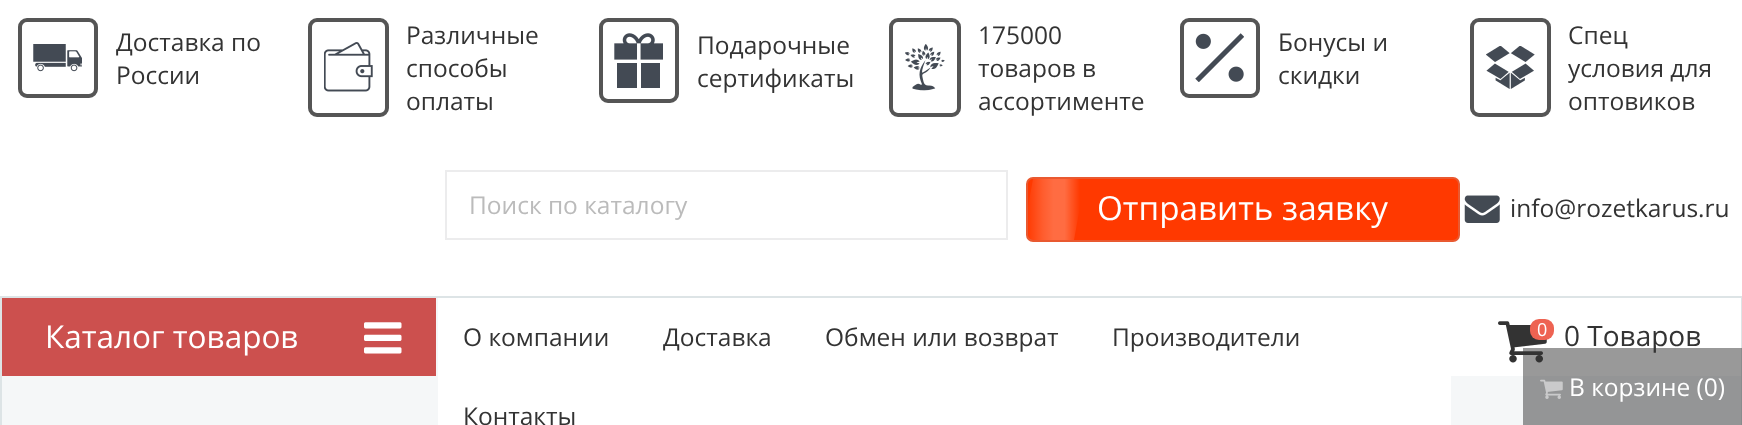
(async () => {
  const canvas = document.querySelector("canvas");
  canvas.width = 1742;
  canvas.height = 425;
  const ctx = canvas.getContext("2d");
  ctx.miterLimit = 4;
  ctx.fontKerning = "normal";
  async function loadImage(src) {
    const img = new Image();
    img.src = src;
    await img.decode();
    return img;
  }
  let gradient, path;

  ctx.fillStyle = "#ffffff";
  ctx.fillRect(0, 0, 1742, 425);
  ctx.beginPath();
  ctx.roundRect(20, 20, 76, 76, 7);
  ctx.strokeStyle = "#555555";
  ctx.lineWidth = 4;
  ctx.stroke();
  ctx.drawImage(await loadImage("img/1.png"), 33, 44, 49, 28);
  ctx.beginPath();
  ctx.roundRect(310, 20, 77, 95, 7);
  ctx.stroke();
  ctx.drawImage(await loadImage("img/2.png"), 324, 42, 49, 50);
  ctx.beginPath();
  ctx.roundRect(601, 20, 76, 81, 7);
  ctx.stroke();
  ctx.drawImage(await loadImage("img/3.png"), 614, 33, 49, 55);
  ctx.beginPath();
  ctx.roundRect(891, 20, 68, 95, 7);
  ctx.stroke();
  ctx.drawImage(await loadImage("img/4.png"), 905, 44, 40, 47);
  ctx.beginPath();
  ctx.roundRect(1182, 20, 76, 76, 7);
  ctx.stroke();
  ctx.drawImage(await loadImage("img/5.png"), 1195, 33, 49, 49);
  ctx.beginPath();
  ctx.roundRect(1472, 20, 77, 95, 7);
  ctx.stroke();
  ctx.drawImage(await loadImage("img/6.png"), 1486, 46, 49, 43);
  ctx.strokeStyle = "#ececed";
  ctx.lineWidth = 2;
  ctx.strokeRect(446, 171, 561, 68);
  ctx.fillStyle = "#ff3900";
  ctx.beginPath();
  ctx.roundRect(1027, 178, 432, 63, 6);
  ctx.fill();
  ctx.strokeStyle = "#e95930";
  ctx.stroke();
  gradient = ctx.createLinearGradient(1027, 209, 1080, 209);
  gradient.addColorStop(0, "rgba(255, 255, 255, 0)");
  gradient.addColorStop(0.01, "rgba(255, 255, 255, 0.01)");
  gradient.addColorStop(0.3, "rgba(255, 255, 255, 0.18)");
  gradient.addColorStop(0.5, "rgba(255, 255, 255, 0.26)");
  gradient.addColorStop(0.71, "rgba(255, 255, 255, 0.26)");
  gradient.addColorStop(1, "rgba(255, 255, 255, 0)");
  ctx.fillStyle = gradient;
  path = new Path2D("M1027 212L1033 179H1085L1074 240H1032C1029 240 1027 238 1027 235Z");
  ctx.fill(path);
  ctx.drawImage(await loadImage("img/7.png"), 1464, 195, 36, 28);
  for (const [x, y, w, h, color] of [
    [2, 298, 1739, 127, "#f5f7f8"],
    [0, 296, 1742, 2, "#dde4e6"],
    [1741, 298, 1, 127, "#dde4e6"],
    [0, 298, 2, 127, "#dde4e6"],
    [2, 298, 434, 78, "#cc504e"],
  ]) {
    ctx.fillStyle = color;
    ctx.fillRect(x, y, w, h);
  }
  ctx.drawImage(await loadImage("img/8.png"), 364, 322, 38, 32);
  ctx.fillStyle = "#ffffff";
  ctx.fillRect(438, 298, 1013, 127);
  ctx.fillRect(1451, 298, 290, 78);
  ctx.drawImage(await loadImage("img/9.png"), 1498, 321, 49, 42);
  ctx.fillStyle = "#ee6352";
  ctx.beginPath();
  ctx.roundRect(1530, 319, 24, 21, 9);
  ctx.fill();
  ctx.font = "24.5px Open Sans";
  ctx.fillStyle = "#333333";
  for (const [text, x, y] of [
    ["Доставка по", 116, 51],
    ["России", 116, 84],
    ["Различные", 406, 44],
    ["способы", 406, 77],
    ["оплаты", 406, 110],
    ["Подарочные", 697, 54],
    ["сертификаты", 697, 87],
    ["175000", 978, 44],
    ["товаров в", 978, 77],
    ["ассортименте", 978, 110],
    ["Бонусы и", 1278, 51],
    ["скидки", 1278, 84],
    ["Спец", 1568, 44],
    ["условия для", 1568, 77],
    ["оптовиков", 1568, 110],
  ]) {
    ctx.fillText(text, x, y);
  }
  ctx.fillStyle = "#bbbbbb";
  ctx.fillText("Поиск по каталогу", 469, 214);
  ctx.font = "33.25px Open Sans";
  ctx.fillStyle = "#ffffff";
  ctx.fillText("Отправить заявку", 1097, 220);
  ctx.font = "24.5px Open Sans";
  ctx.fillStyle = "#333333";
  ctx.fillText("info@rozetkarus.ru", 1510, 217);
  ctx.font = "31.5px Open Sans";
  ctx.fillStyle = "#ffffff";
  ctx.fillText("Каталог товаров", 45, 348);
  ctx.font = "24.5px Open Sans";
  ctx.fillStyle = "#333333";
  for (const [text, x, y] of [
    ["О компании", 463, 346],
    ["Доставка", 663, 346],
    ["Обмен или возврат", 825, 346],
    ["Производители", 1112, 346],
    ["Контакты", 463, 425],
  ]) {
    ctx.fillText(text, x, y);
  }
  ctx.font = "18px Open Sans";
  ctx.fillStyle = "#ffffff";
  ctx.fillText("0", 1537, 336);
  ctx.font = "28px Open Sans";
  ctx.fillStyle = "#333333";
  ctx.fillText("0 Товаров", 1564, 346);
  ctx.fillStyle = "rgba(51, 51, 51, 0.5)";
  ctx.fillRect(1523, 348, 219, 77);
  ctx.drawImage(await loadImage("img/10.png"), 1540, 379, 23, 20);
  ctx.font = "24.5px Open Sans";
  ctx.fillStyle = "#ffffff";
  ctx.fillText("В корзине (0)", 1569, 396);
})();
